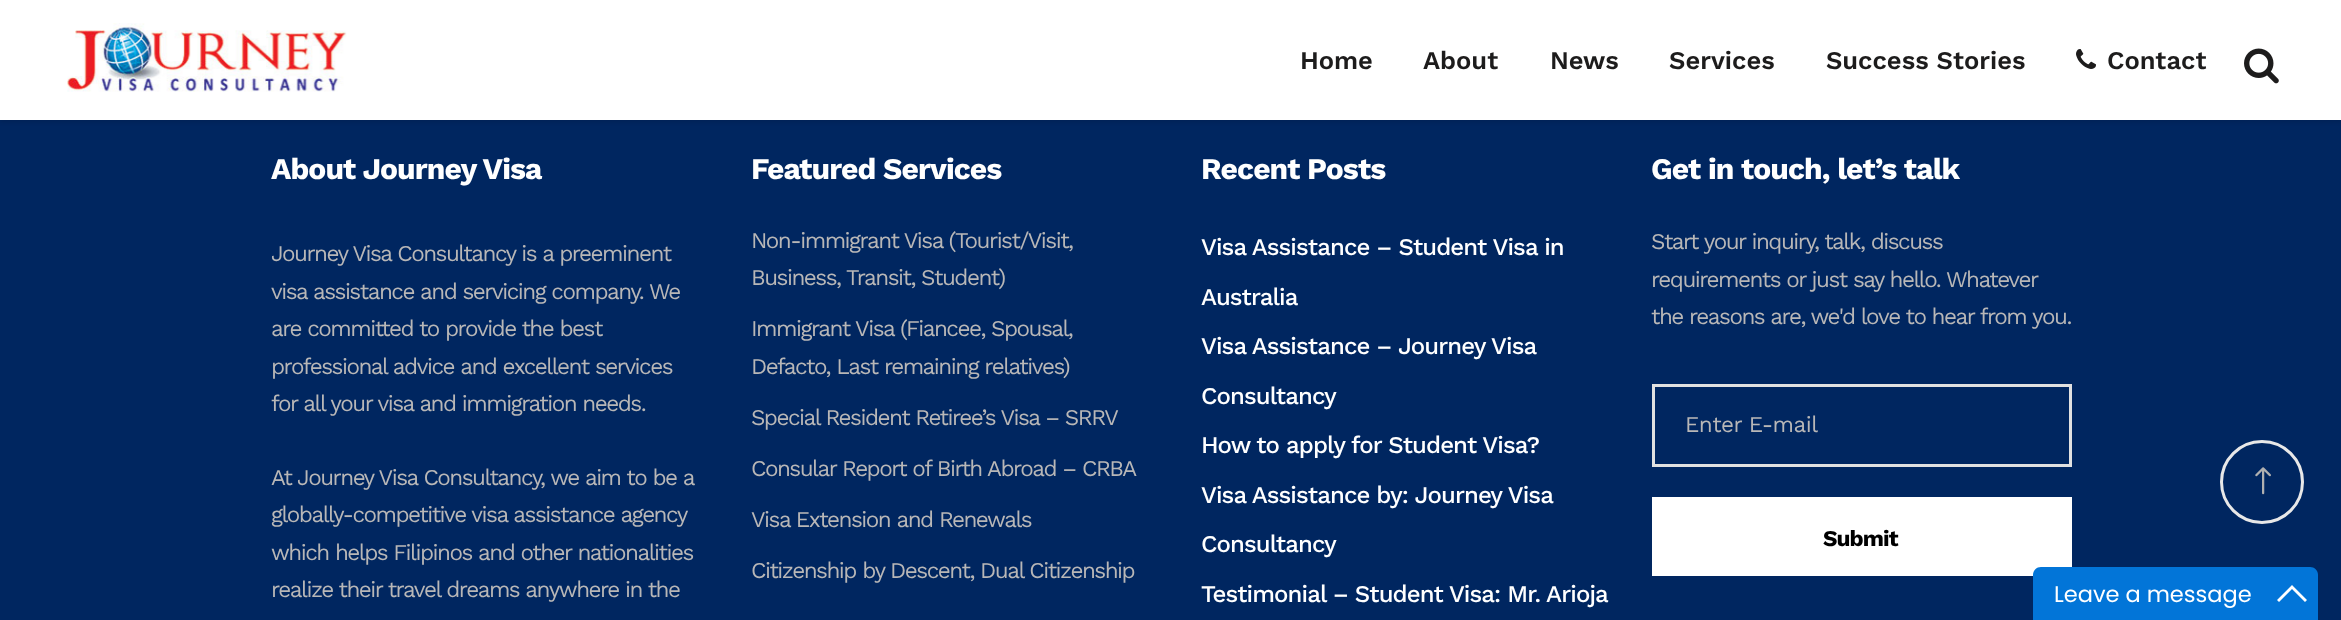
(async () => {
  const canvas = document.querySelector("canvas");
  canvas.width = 2341;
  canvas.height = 620;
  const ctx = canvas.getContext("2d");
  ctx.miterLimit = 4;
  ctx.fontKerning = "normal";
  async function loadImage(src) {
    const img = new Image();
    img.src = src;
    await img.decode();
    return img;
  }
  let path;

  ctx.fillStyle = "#002660";
  ctx.fillRect(0, 0, 2341, 620);
  ctx.fillStyle = "rgba(0, 0, 0, 0.11)";
  ctx.filter = "blur(2px)";
  ctx.beginPath();
  ctx.rect(0, 2, 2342, 120);
  ctx.fill();
  ctx.filter = "none";
  ctx.fillStyle = "#ffffff";
  ctx.fillRect(0, 0, 2341, 120);
  ctx.drawImage(await loadImage("img/1.png"), 67, 23, 280, 69);
  ctx.drawImage(await loadImage("img/2.png"), 2076, 49, 20, 20);
  ctx.drawImage(await loadImage("img/3.png"), 2244, 48, 35, 36);
  ctx.strokeStyle = "#e1e1e1";
  ctx.lineWidth = 3;
  ctx.strokeRect(1653.5, 385.5, 417, 80);
  ctx.fillRect(1652, 497, 420, 79);
  ctx.beginPath();
  ctx.arc(2262, 482, 40.5, 0, Math.PI * 2);
  ctx.strokeStyle = "#e8e8e8";
  ctx.stroke();
  ctx.drawImage(await loadImage("img/4.png"), 2255, 467, 16, 28);
  ctx.fillStyle = "#0275d8";
  path = new Path2D("M2041 567H2310C2314.5 567 2318 570.5 2318 575V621H2033V575C2033 570.5 2036.5 567 2041 567Z");
  ctx.fill(path);
  ctx.fillStyle = "#ffffff";
  path = new Path2D("M2292 585L2307 600L2305 602L2292 589L2279 602L2277 600Z");
  ctx.fill(path);
  ctx.font = "600 25.5px Work Sans";
  ctx.fillStyle = "#1d1c1c";
  for (const [text, x, y] of [
    ["Home", 1300, 69],
    ["About", 1423, 69],
    ["News", 1550, 69],
    ["Services", 1669, 69],
    ["Success Stories", 1826, 69],
    ["Contact", 2107, 69],
  ]) {
    ctx.fillText(text, x, y);
  }
  ctx.letterSpacing = "-0.9px";
  ctx.font = "bold 30px Work Sans";
  ctx.fillStyle = "#ffffff";
  ctx.fillText("About Journey Visa", 271, 179);
  ctx.letterSpacing = "-1.5px";
  ctx.font = "22.5px Work Sans";
  ctx.fillStyle = "#b8b7b7";
  for (const [text, x, y] of [
    ["Journey Visa Consultancy is a preeminent", 271, 261],
    ["visa assistance and servicing company. We", 271, 299],
    ["are committed to provide the best", 271, 336],
    ["professional advice and excellent services", 271, 374],
    ["for all your visa and immigration needs.", 271, 411],
    ["At Journey Visa Consultancy, we aim to be a", 271, 485],
    ["globally-competitive visa assistance agency", 271, 522],
    ["which helps Filipinos and other nationalities", 271, 560],
    ["realize their travel dreams anywhere in the", 271, 597],
  ]) {
    ctx.fillText(text, x, y);
  }
  ctx.letterSpacing = "-0.9px";
  ctx.font = "bold 30px Work Sans";
  ctx.fillStyle = "#ffffff";
  ctx.fillText("Featured Services", 751, 179);
  ctx.letterSpacing = "-1.5px";
  ctx.font = "22.5px Work Sans";
  ctx.fillStyle = "#b8b7b7";
  for (const [text, x, y] of [
    ["Non-immigrant Visa (Tourist/Visit,", 751, 248],
    ["Business, Transit, Student)", 751, 285],
    ["Immigrant Visa (Fiancee, Spousal,", 751, 336],
    ["Defacto, Last remaining relatives)", 751, 374],
    ["Special Resident Retiree’s Visa – SRRV", 751, 425],
    ["Consular Report of Birth Abroad – CRBA", 751, 476],
    ["Visa Extension and Renewals", 751, 527],
    ["Citizenship by Descent, Dual Citizenship", 751, 578],
  ]) {
    ctx.fillText(text, x, y);
  }
  ctx.letterSpacing = "-0.9px";
  ctx.font = "bold 30px Work Sans";
  ctx.fillStyle = "#ffffff";
  ctx.fillText("Recent Posts", 1201, 179);
  ctx.font = "500 24px Work Sans";
  for (const [text, x, y] of [
    ["Visa Assistance – Student Visa in", 1201, 255],
    ["Australia", 1201, 305],
    ["Visa Assistance – Journey Visa", 1201, 354],
    ["Consultancy", 1201, 404],
    ["How to apply for Student Visa?", 1201, 453],
    ["Visa Assistance by: Journey Visa", 1201, 503],
    ["Consultancy", 1201, 552],
    ["Testimonial – Student Visa: Mr. Arioja", 1201, 602],
  ]) {
    ctx.fillText(text, x, y);
  }
  ctx.font = "bold 30px Work Sans";
  ctx.fillText("Get in touch, let’s talk", 1651, 179);
  ctx.letterSpacing = "-1.5px";
  ctx.font = "22.5px Work Sans";
  ctx.fillStyle = "#b8b7b7";
  for (const [text, x, y] of [
    ["Start your inquiry, talk, discuss", 1651, 249],
    ["requirements or just say hello. Whatever", 1651, 287],
    ["the reasons are, we'd love to hear from you.", 1651, 324],
  ]) {
    ctx.fillText(text, x, y);
  }
  ctx.letterSpacing = "-0.5px";
  ctx.fillText("Enter E-mail", 1685, 432);
  ctx.letterSpacing = "-0.9px";
  ctx.font = "bold 22.5px Work Sans";
  ctx.fillStyle = "#000000";
  ctx.fillText("Submit", 1823, 546);
  ctx.letterSpacing = "0px";
  ctx.font = "22.5px Poppins";
  ctx.fillStyle = "#ffffff";
  ctx.fillText("Leave a message", 2054, 602);
})();
